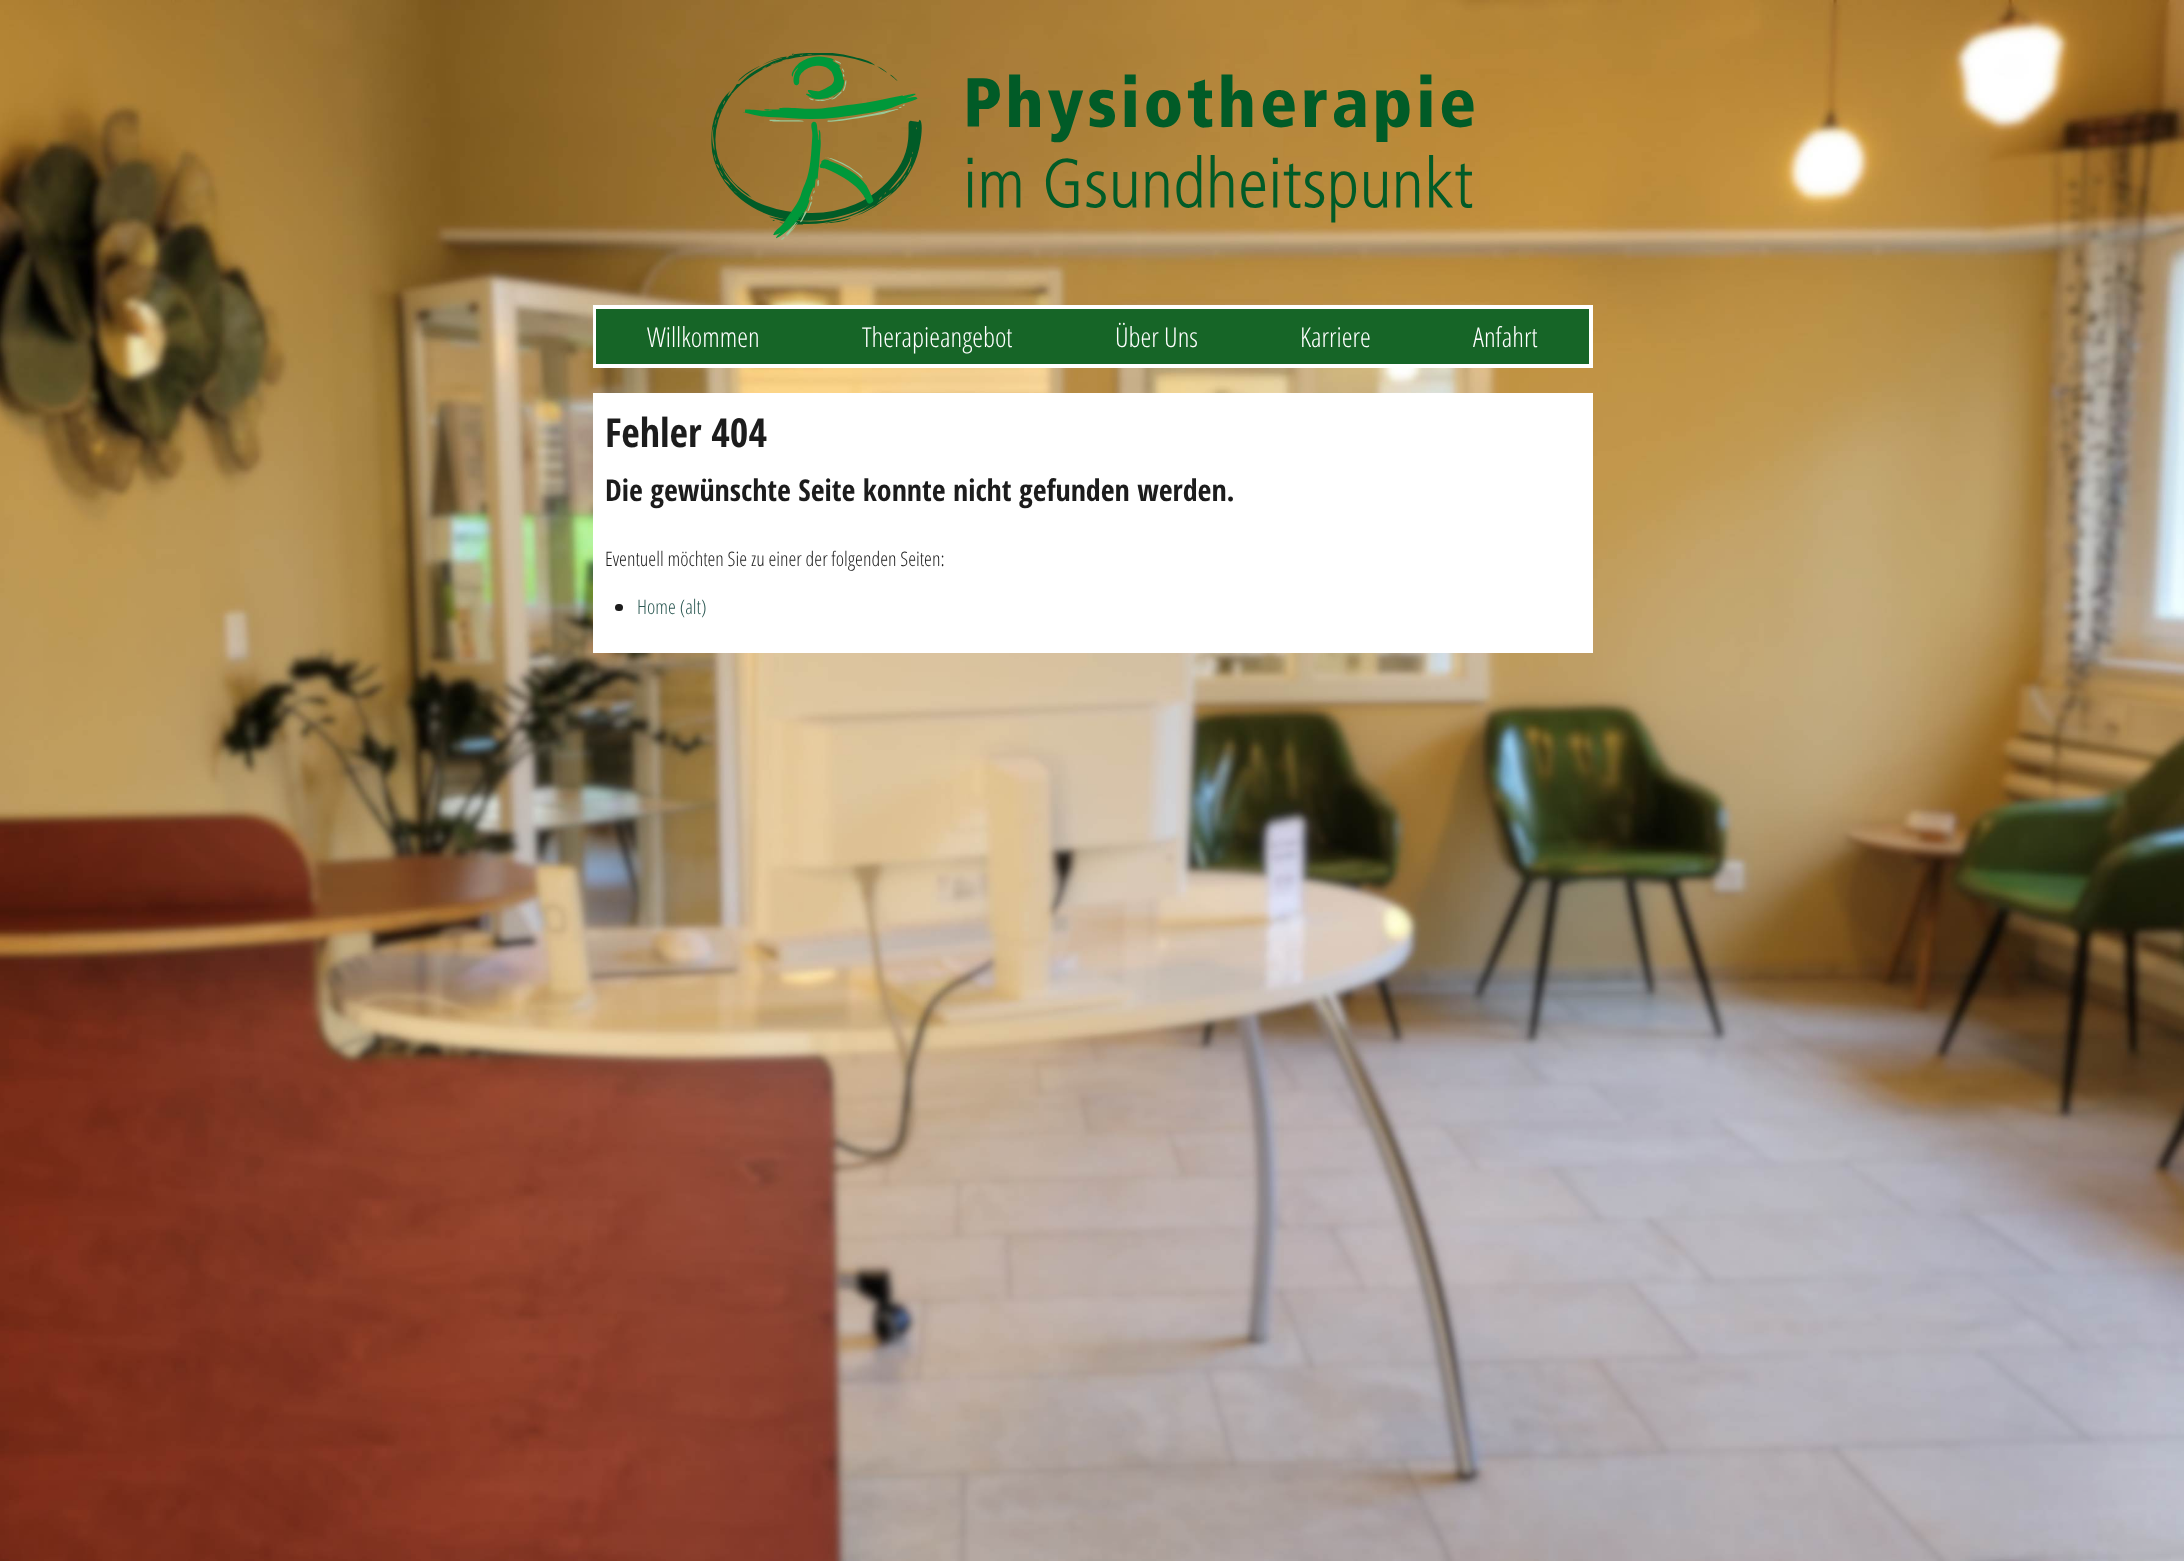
(async () => {
  const canvas = document.querySelector("canvas");
  canvas.width = 2184;
  canvas.height = 1561;
  const ctx = canvas.getContext("2d");
  ctx.miterLimit = 4;
  ctx.fontKerning = "normal";
  async function loadImage(src) {
    const img = new Image();
    img.src = src;
    await img.decode();
    return img;
  }

  ctx.fillStyle = "#ffffff";
  ctx.fillRect(0, 0, 2184, 1561);
  ctx.drawImage(await loadImage("img/1.png"), 0, 0, 2184, 1561);
  ctx.drawImage(await loadImage("img/2.png"), 711, 53, 763, 187);
  ctx.strokeStyle = "#ffffff";
  ctx.lineWidth = 4;
  ctx.strokeRect(595, 307, 996, 59);
  ctx.fillStyle = "#166527";
  ctx.fillRect(596, 309, 993, 55);
  ctx.fillStyle = "#ffffff";
  ctx.fillRect(593, 393, 1000, 260);
  ctx.fillStyle = "#1c1c1c";
  ctx.beginPath();
  ctx.roundRect(615, 604, 8, 7, 3.5);
  ctx.fill();
  ctx.font = "300 27.5px Open Sans Condensed";
  ctx.fillStyle = "#ffffff";
  for (const [text, x, y] of [
    ["Willkommen", 647, 347],
    ["Therapieangebot", 862, 347],
    ["Über Uns", 1115, 347],
    ["Karriere", 1300, 347],
    ["Anfahrt", 1473, 347],
  ]) {
    ctx.fillText(text, x, y);
  }
  ctx.font = "bold 40px Open Sans Condensed";
  ctx.fillStyle = "#1c1c1c";
  ctx.fillText("Fehler 404", 605, 447);
  ctx.font = "bold 30px Open Sans Condensed";
  ctx.fillText("Die gewünschte Seite konnte nicht gefunden werden.", 605, 501);
  ctx.font = "300 20px Open Sans Condensed";
  ctx.fillText("Eventuell möchten Sie zu einer der folgenden Seiten:", 605, 566);
  ctx.fillStyle = "#2c5953";
  ctx.fillText("Home (alt)", 637, 614);
})();
